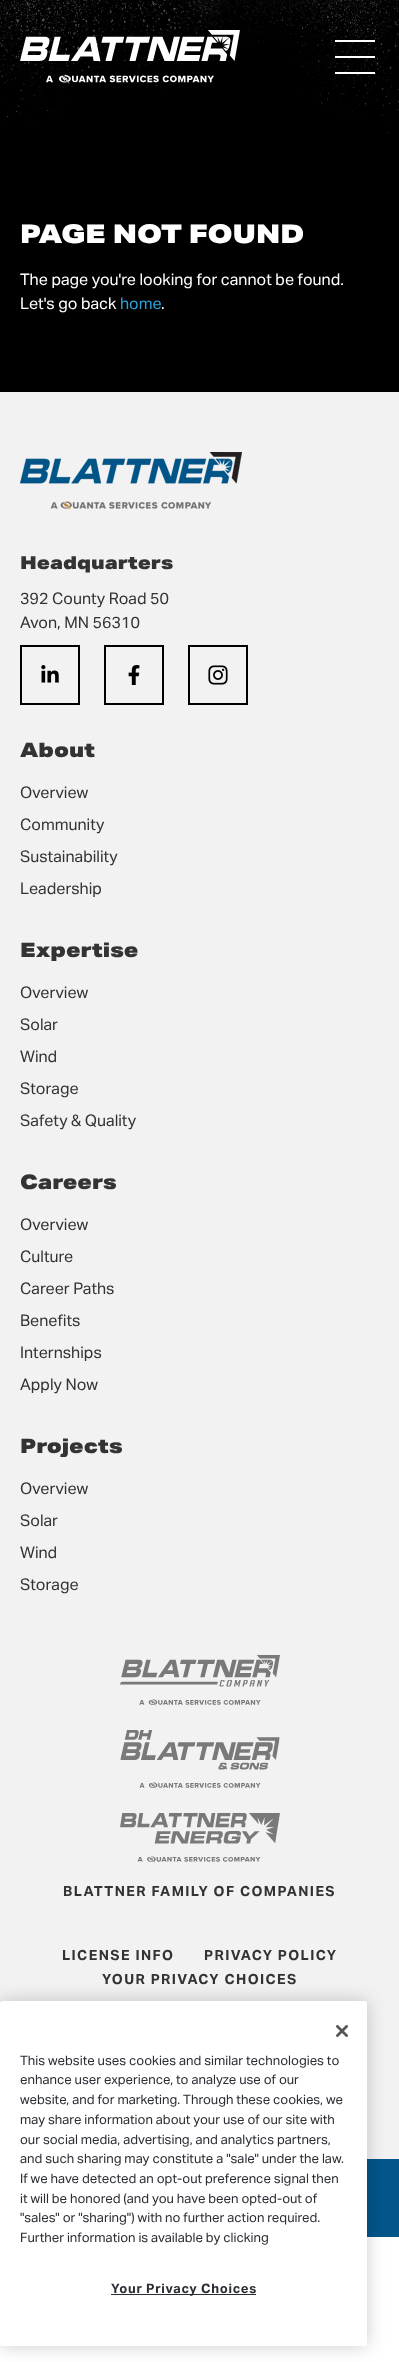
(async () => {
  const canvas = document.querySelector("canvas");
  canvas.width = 399;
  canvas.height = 2362;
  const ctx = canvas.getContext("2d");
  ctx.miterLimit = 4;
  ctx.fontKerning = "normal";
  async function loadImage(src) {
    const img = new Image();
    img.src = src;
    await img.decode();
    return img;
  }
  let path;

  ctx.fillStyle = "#ffffff";
  ctx.fillRect(0, 0, 399, 2362);
  ctx.drawImage(await loadImage("img/2.png"), 0, 0, 399, 134);
  ctx.drawImage(await loadImage("img/1.png"), 20, 30, 220, 54);
  for (const [x, y, w, h, color] of [
    [335, 40, 40, 2, "#ffffff"],
    [335, 56, 40, 2, "#ffffff"],
    [335, 72, 40, 2, "#ffffff"],
    [0, 134, 399, 258, "#000000"],
    [0, 392, 399, 1767, "#f2f2f2"],
    [367, 2219, 32, 18, "#02568a"],
  ]) {
    ctx.fillStyle = color;
    ctx.fillRect(x, y, w, h);
  }
  ctx.drawImage(await loadImage("img/3.png"), 20, 452, 222, 58);
  ctx.strokeStyle = "#000000";
  ctx.lineWidth = 2;
  ctx.strokeRect(21, 646, 58, 58);
  ctx.drawImage(await loadImage("img/4.png"), 41, 665, 18, 18);
  ctx.strokeRect(105, 646, 58, 58);
  ctx.drawImage(await loadImage("img/5.png"), 128, 665, 12, 20);
  ctx.strokeRect(189, 646, 58, 58);
  ctx.drawImage(await loadImage("img/6.png"), 208, 665, 20, 20);
  ctx.drawImage(await loadImage("img/7.png"), 120, 1655, 160, 51);
  ctx.drawImage(await loadImage("img/8.png"), 120, 1730, 160, 59);
  ctx.drawImage(await loadImage("img/9.png"), 120, 1813, 160, 50);
  path = new Path2D("M249 2159L199 2219H399V2159Z");
  ctx.fill(path);
  ctx.fillStyle = "rgba(0, 0, 0, 0.2)";
  ctx.filter = "blur(9px)";
  ctx.beginPath();
  ctx.roundRect(0, 2001, 367, 345, 2.5);
  ctx.fill();
  ctx.filter = "none";
  ctx.fillStyle = "#ffffff";
  ctx.beginPath();
  ctx.roundRect(0, 2001, 367, 345, 2.5);
  ctx.fill();
  ctx.drawImage(await loadImage("img/10.png"), 336, 2025, 12, 12);
  ctx.fillStyle = "#2b2e34";
  ctx.fillRect(111, 2294, 145, 1);
  ctx.font = "900 26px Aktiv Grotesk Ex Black";
  ctx.fillStyle = "#ffffff";
  ctx.fillText("PAGE NOT FOUND", 20, 243);
  ctx.font = "16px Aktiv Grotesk";
  ctx.fillText("The page you're looking for cannot be found.", 20, 285);
  ctx.fillText("Let's go back", 20, 309);
  ctx.fillStyle = "#2da2db";
  ctx.fillText("home", 120, 309);
  ctx.fillStyle = "#ffffff";
  ctx.fillText(".", 161, 309);
  ctx.font = "900 18px Aktiv Grotesk Ex Black";
  ctx.fillStyle = "#333333";
  ctx.fillText("Headquarters", 20, 569);
  ctx.font = "16px Aktiv Grotesk";
  ctx.fillText("392 County Road 50", 20, 604);
  ctx.fillText("Avon, MN 56310", 20, 628);
  ctx.font = "900 20px Aktiv Grotesk Ex Black";
  ctx.fillText("About", 20, 757);
  ctx.font = "16px Aktiv Grotesk";
  for (const [text, x, y] of [
    ["Overview", 20, 798],
    ["Community", 20, 830],
    ["Sustainability", 20, 862],
    ["Leadership", 20, 894],
  ]) {
    ctx.fillText(text, x, y);
  }
  ctx.font = "900 20px Aktiv Grotesk Ex Black";
  ctx.fillText("Expertise", 20, 957);
  ctx.font = "16px Aktiv Grotesk";
  for (const [text, x, y] of [
    ["Overview", 20, 998],
    ["Solar", 20, 1030],
    ["Wind", 20, 1062],
    ["Storage", 20, 1094],
    ["Safety & Quality", 20, 1126],
  ]) {
    ctx.fillText(text, x, y);
  }
  ctx.font = "900 20px Aktiv Grotesk Ex Black";
  ctx.fillText("Careers", 20, 1189);
  ctx.font = "16px Aktiv Grotesk";
  for (const [text, x, y] of [
    ["Overview", 20, 1230],
    ["Culture", 20, 1262],
    ["Career Paths", 20, 1294],
    ["Benefits", 20, 1326],
    ["Internships", 20, 1358],
    ["Apply Now", 20, 1390],
  ]) {
    ctx.fillText(text, x, y);
  }
  ctx.font = "900 20px Aktiv Grotesk Ex Black";
  ctx.fillText("Projects", 20, 1453);
  ctx.font = "16px Aktiv Grotesk";
  for (const [text, x, y] of [
    ["Overview", 20, 1494],
    ["Solar", 20, 1526],
    ["Wind", 20, 1558],
    ["Storage", 20, 1590],
  ]) {
    ctx.fillText(text, x, y);
  }
  ctx.letterSpacing = "1.4px";
  ctx.font = "bold 14px Aktiv Grotesk";
  for (const [text, x, y] of [
    ["BLATTNER FAMILY OF COMPANIES", 63, 1896],
    ["LICENSE INFO", 62, 1960],
    ["PRIVACY POLICY", 204, 1960],
    ["YOUR PRIVACY CHOICES", 102, 1984],
  ]) {
    ctx.fillText(text, x, y);
  }
  ctx.letterSpacing = "0px";
  ctx.font = "13.1px Aktiv Grotesk";
  ctx.fillStyle = "#2b2e34";
  for (const [text, x, y] of [
    ["This website uses cookies and similar technologies to", 20, 2065],
    ["enhance user experience, to analyze use of our", 20, 2084],
    ["website, and for marketing. Through these cookies, we", 20, 2104],
    ["may share information about your use of our site with", 20, 2124],
    ["our social media, advertising, and analytics partners,", 20, 2144],
    ["and such sharing may constitute a \"sale\" under the law.", 20, 2163],
    ["If we have detected an opt-out preference signal then", 20, 2183],
    ["it will be honored (and you have been opted-out of", 20, 2203],
    ["\"sales\" or \"sharing\") with no further action required.", 20, 2222],
    ["Further information is available by clicking", 20, 2242],
  ]) {
    ctx.fillText(text, x, y);
  }
  ctx.letterSpacing = "0.7px";
  ctx.font = "bold 13.1px Aktiv Grotesk";
  ctx.fillText("Your Privacy Choices", 111, 2293);
})();
